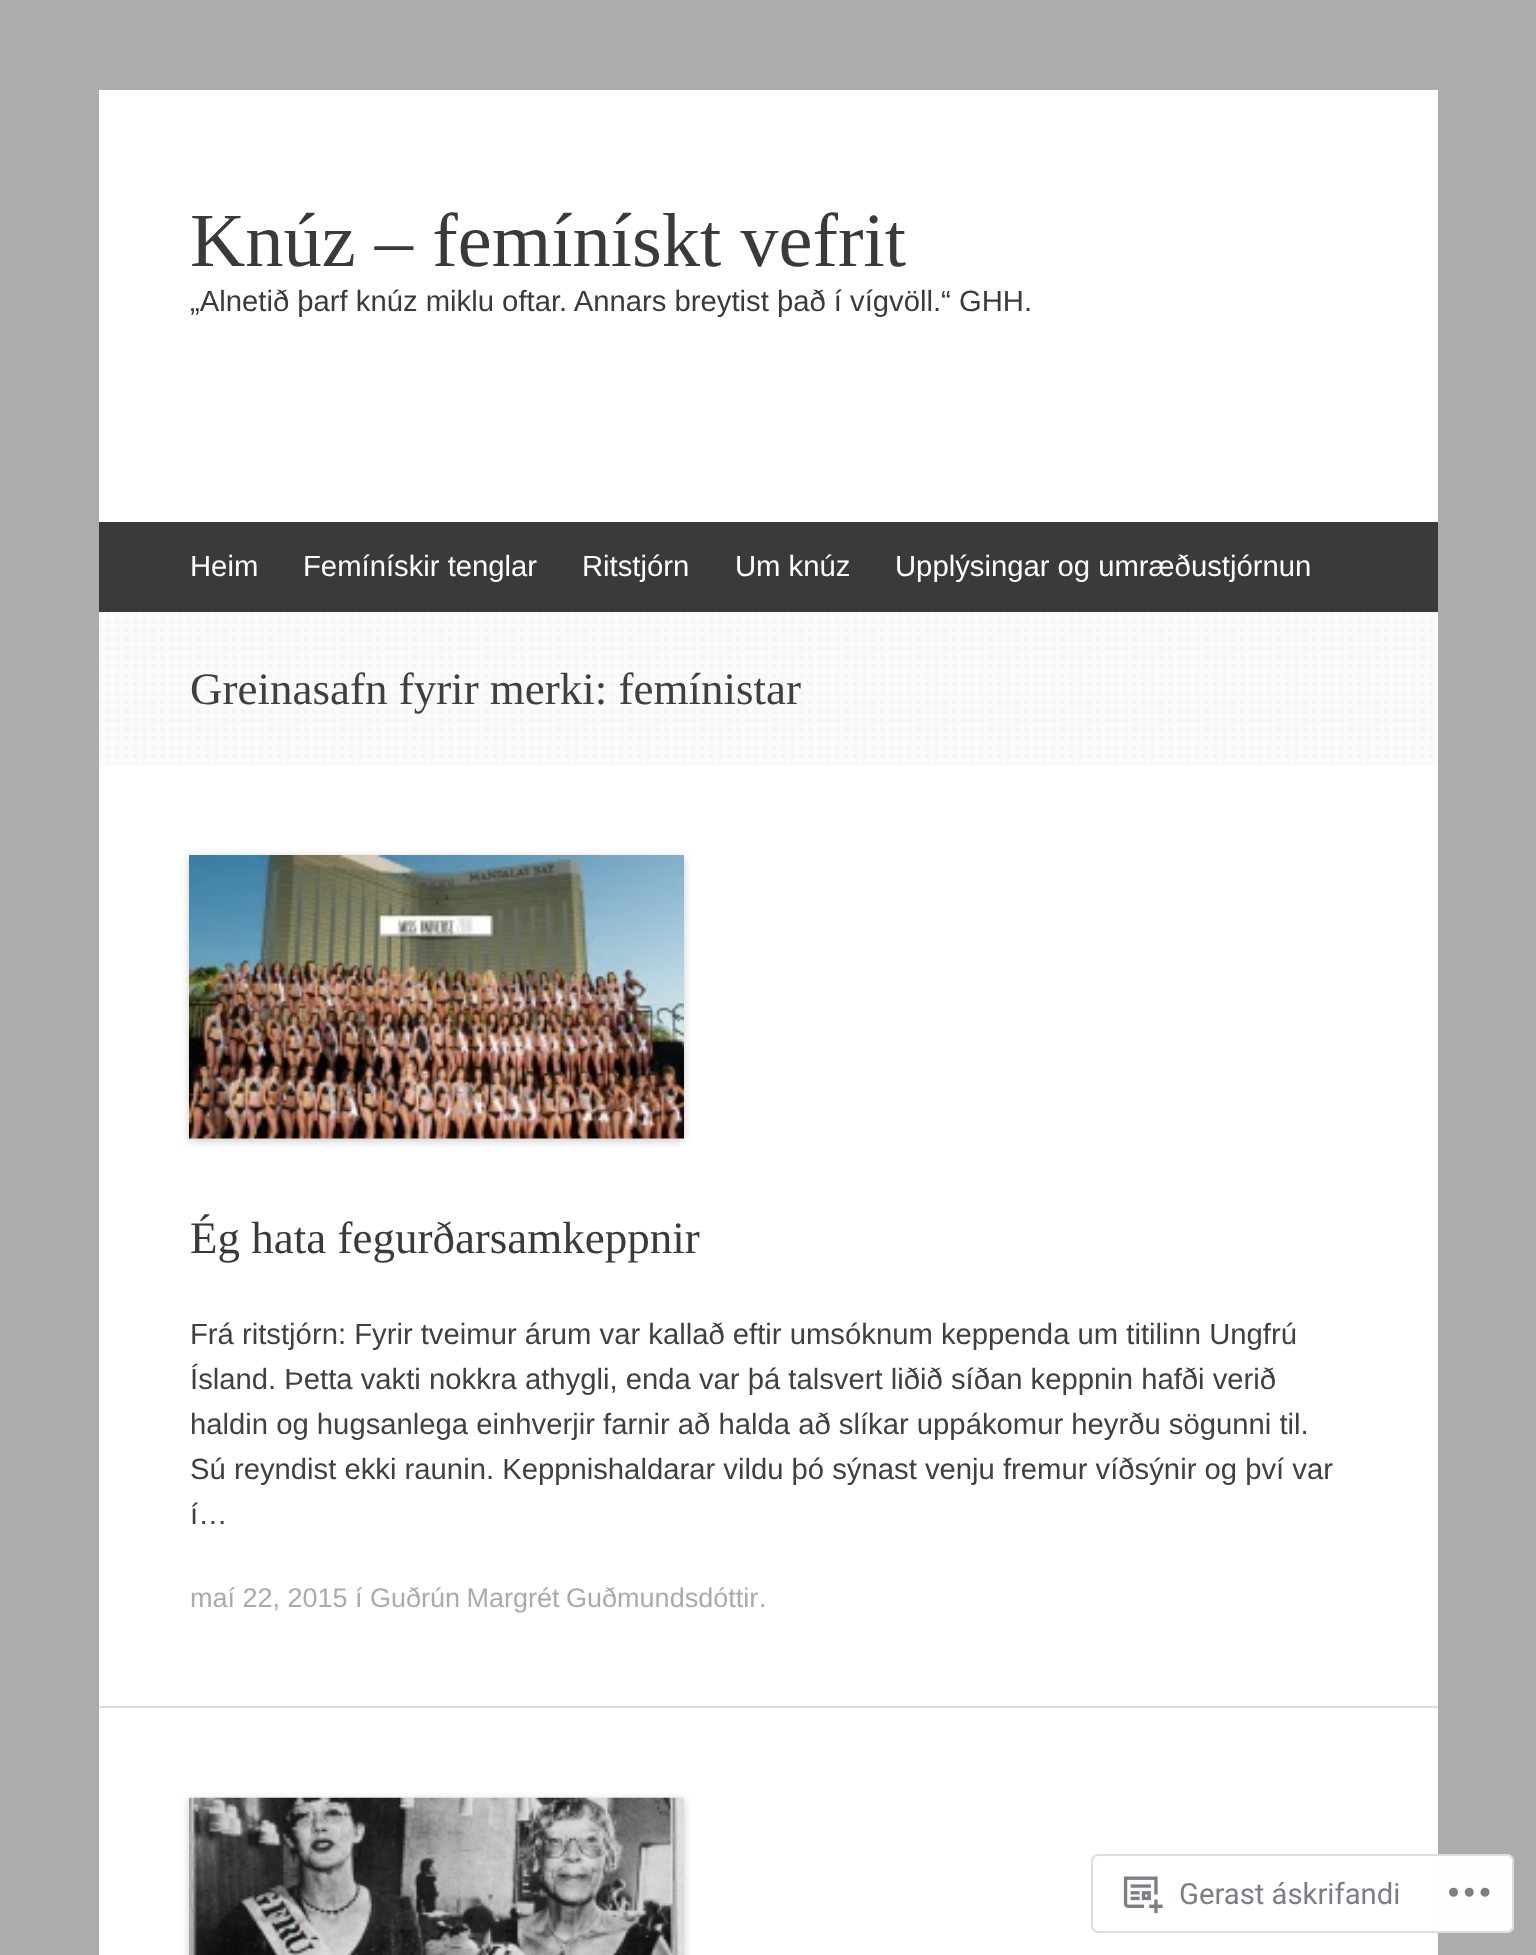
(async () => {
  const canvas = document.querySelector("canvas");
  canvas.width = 1536;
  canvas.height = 1955;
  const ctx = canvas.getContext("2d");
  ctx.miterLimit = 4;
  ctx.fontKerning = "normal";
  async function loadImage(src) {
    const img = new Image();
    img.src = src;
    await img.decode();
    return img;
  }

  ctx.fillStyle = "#acacac";
  ctx.fillRect(0, 0, 1536, 1955);
  ctx.fillStyle = "#ffffff";
  ctx.fillRect(99, 90, 1339, 1865);
  ctx.fillStyle = "#3a3a3a";
  ctx.fillRect(99, 522, 1339, 90);
  ctx.drawImage(await loadImage("img/1.png"), 99, 612, 1339, 153);
  ctx.fillStyle = "#dddddd";
  ctx.fillRect(99, 1706, 1339, 2);
  ctx.fillStyle = "rgba(0, 0, 0, 0.2)";
  ctx.filter = "blur(4.5px)";
  ctx.beginPath();
  ctx.rect(189, 857, 495, 284);
  ctx.fill();
  ctx.filter = "none";
  ctx.drawImage(await loadImage("img/2.png"), 189, 855, 495, 284);
  ctx.filter = "blur(4.5px)";
  ctx.beginPath();
  ctx.rect(189, 1800, 495, 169);
  ctx.fill();
  ctx.filter = "none";
  ctx.drawImage(await loadImage("img/3.png"), 189, 1797, 495, 158);
  ctx.fillStyle = "rgba(255, 255, 255, 0.98)";
  ctx.beginPath();
  ctx.roundRect(1091, 1854, 423, 79, 7);
  ctx.fill();
  ctx.beginPath();
  ctx.roundRect(1092, 1855, 421, 77, 6);
  ctx.strokeStyle = "rgba(220, 220, 222, 0.98)";
  ctx.lineWidth = 2;
  ctx.stroke();
  ctx.drawImage(await loadImage("img/4.png"), 1123, 1876, 40, 38);
  ctx.drawImage(await loadImage("img/5.png"), 1449, 1887, 41, 10);
  ctx.font = "76.5px Liberation Serif";
  ctx.fillStyle = "#3a3a3a";
  ctx.fillText("Knúz – femínískt vefrit", 190, 266);
  ctx.font = "29.25px Liberation Sans";
  ctx.fillText("„Alnetið þarf knúz miklu oftar. Annars breytist það í vígvöll.“ GHH.", 190, 311);
  ctx.fillStyle = "#ffffff";
  for (const [text, x, y] of [
    ["Heim", 190, 576],
    ["Femínískir tenglar", 303, 576],
    ["Ritstjórn", 582, 576],
    ["Um knúz", 735, 576],
    ["Upplýsingar og umræðustjórnun", 895, 576],
  ]) {
    ctx.fillText(text, x, y);
  }
  ctx.font = "45px Liberation Serif";
  ctx.fillStyle = "#404040";
  ctx.fillText("Greinasafn fyrir merki: femínistar", 190, 704);
  ctx.fillStyle = "#3a3a3a";
  ctx.fillText("Ég hata fegurðarsamkeppnir", 190, 1253);
  ctx.font = "29.25px Liberation Sans";
  ctx.fillStyle = "#404040";
  for (const [text, x, y] of [
    ["Frá ritstjórn: Fyrir tveimur árum var kallað eftir umsóknum keppenda um titilinn Ungfrú", 190, 1344],
    ["Ísland. Þetta vakti nokkra athygli, enda var þá talsvert liðið síðan keppnin hafði verið", 190, 1389],
    ["haldin og hugsanlega einhverjir farnir að halda að slíkar uppákomur heyrðu sögunni til.", 190, 1434],
    ["Sú reyndist ekki raunin. Keppnishaldarar vildu þó sýnast venju fremur víðsýnir og því var", 190, 1479],
    ["í…", 190, 1524],
  ]) {
    ctx.fillText(text, x, y);
  }
  ctx.font = "27px Liberation Sans";
  ctx.fillStyle = "#aaaaaa";
  ctx.fillText("maí 22, 2015 í", 190, 1607);
  ctx.wordSpacing = "-1px";
  ctx.fillText("Guðrún Margrét Guðmundsdóttir", 370, 1607);
  ctx.wordSpacing = "0px";
  ctx.fillText(".", 759, 1607);
  ctx.font = "29.25px Roboto";
  ctx.fillStyle = "#7b7f85";
  ctx.fillText("Gerast áskrifandi", 1179, 1904);
})();
